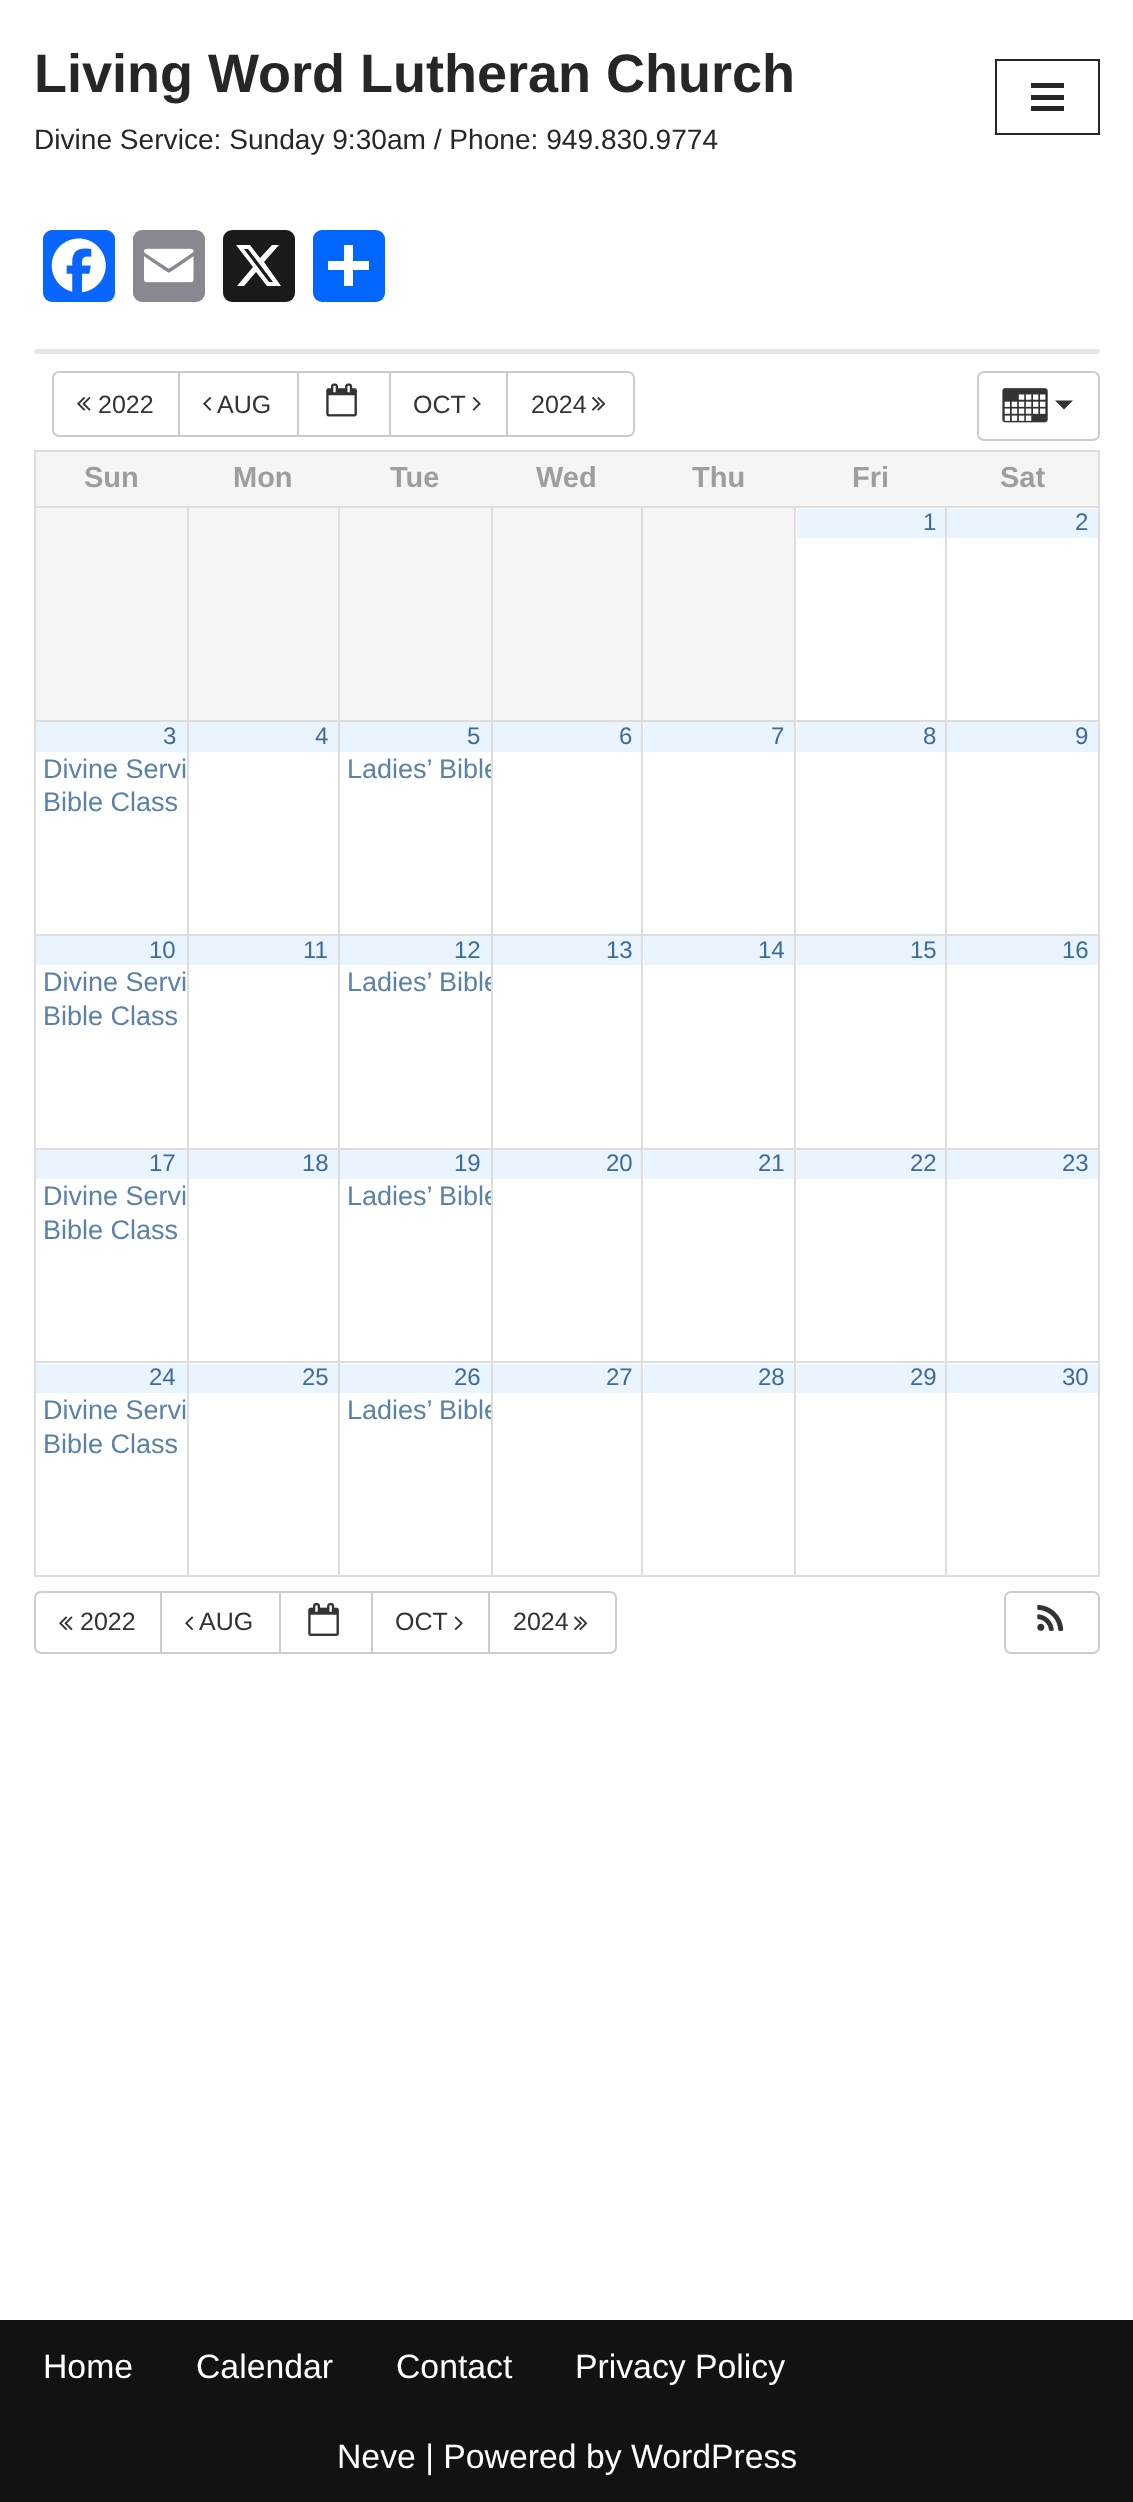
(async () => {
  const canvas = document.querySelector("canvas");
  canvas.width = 1133;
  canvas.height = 2502;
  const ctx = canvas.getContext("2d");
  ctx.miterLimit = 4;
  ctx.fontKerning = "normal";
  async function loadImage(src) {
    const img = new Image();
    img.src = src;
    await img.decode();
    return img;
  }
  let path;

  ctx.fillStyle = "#ffffff";
  ctx.fillRect(0, 0, 1133, 2502);
  ctx.strokeStyle = "#272626";
  ctx.lineWidth = 2;
  ctx.strokeRect(996, 60, 103, 74);
  for (const [x, y, w, h, color] of [
    [1031, 83, 33, 5, "#272626"],
    [1031, 95, 33, 5, "#272626"],
    [1031, 106, 33, 5, "#272626"],
  ]) {
    ctx.fillStyle = color;
    ctx.fillRect(x, y, w, h);
  }
  ctx.fillStyle = "#0866ff";
  ctx.beginPath();
  ctx.roundRect(43, 230, 72, 72, 9);
  ctx.fill();
  ctx.drawImage(await loadImage("img/1.png"), 51, 238, 55, 55);
  ctx.fillStyle = "#888990";
  ctx.beginPath();
  ctx.roundRect(133, 230, 72, 72, 9);
  ctx.fill();
  ctx.drawImage(await loadImage("img/2.png"), 144, 248, 50, 35);
  ctx.fillStyle = "#1a1a1a";
  ctx.beginPath();
  ctx.roundRect(223, 230, 72, 72, 9);
  ctx.fill();
  ctx.fillStyle = "#ffffff";
  path = new Path2D("M272 245H279L264 262L281 286H267L256 272L244 286H237L253 267L236 245H250L260 258ZM269 282H273L248 249H244Z");
  ctx.fill(path);
  ctx.fillStyle = "#0166ff";
  ctx.beginPath();
  ctx.roundRect(313, 230, 72, 72, 9);
  ctx.fill();
  ctx.fillStyle = "#ffffff";
  ctx.fillRect(344, 245, 9, 41);
  ctx.fillRect(328, 261, 41, 9);
  ctx.fillStyle = "#e6e6e6";
  ctx.beginPath();
  ctx.roundRect(34, 349, 1066, 5, 2.5);
  ctx.fill();
  ctx.beginPath();
  ctx.roundRect(53, 372, 126, 64, [6, 0, 0, 6]);
  ctx.strokeStyle = "#cccccc";
  ctx.stroke();
  ctx.drawImage(await loadImage("img/3.png"), 77, 397, 14, 14);
  ctx.strokeRect(179, 372, 119, 64);
  ctx.drawImage(await loadImage("img/4.png"), 203, 397, 9, 14);
  ctx.strokeRect(298, 372, 93, 64);
  ctx.drawImage(await loadImage("img/5.png"), 326, 383, 31, 34);
  ctx.fillStyle = "#ffffff";
  ctx.fillRect(391, 373, 1, 62);
  ctx.strokeRect(390, 372, 118, 64);
  ctx.drawImage(await loadImage("img/6.png"), 472, 397, 9, 14);
  ctx.beginPath();
  ctx.roundRect(507, 372, 127, 64, [0, 6, 6, 0]);
  ctx.fill();
  ctx.stroke();
  ctx.drawImage(await loadImage("img/7.png"), 592, 397, 14, 14);
  ctx.beginPath();
  ctx.roundRect(978, 372, 121, 68, 6);
  ctx.stroke();
  ctx.drawImage(await loadImage("img/8.png"), 1002, 388, 46, 35);
  ctx.fillStyle = "#333333";
  path = new Path2D("M1055 400.5H1073L1064 409.5Z");
  ctx.fill(path);
  for (const [x, y, w, h, color] of [
    [34, 450, 1066, 2, "#dddddd"],
    [1098, 450, 2, 1127, "#dddddd"],
    [34, 1575, 1066, 2, "#dddddd"],
    [34, 450, 2, 1127, "#dddddd"],
    [36, 452, 1062, 54, "#f5f5f5"],
    [36, 508, 151, 212, "#f5f5f5"],
    [945, 506, 155, 2, "#dddddd"],
    [945, 720, 155, 2, "#dddddd"],
    [945, 934, 155, 2, "#dddddd"],
    [945, 1148, 155, 2, "#dddddd"],
    [945, 1361, 155, 2, "#dddddd"],
    [945, 1361, 2, 216, "#dddddd"],
    [794, 1361, 153, 2, "#dddddd"],
    [945, 1148, 2, 216, "#dddddd"],
    [794, 1148, 153, 2, "#dddddd"],
    [945, 934, 2, 216, "#dddddd"],
    [794, 934, 153, 2, "#dddddd"],
    [945, 720, 2, 216, "#dddddd"],
    [794, 720, 153, 2, "#dddddd"],
    [945, 506, 2, 216, "#dddddd"],
    [794, 506, 153, 2, "#dddddd"],
    [794, 1361, 2, 216, "#dddddd"],
    [641, 1361, 156, 2, "#dddddd"],
    [794, 1148, 2, 216, "#dddddd"],
    [641, 1148, 156, 2, "#dddddd"],
    [794, 934, 2, 216, "#dddddd"],
    [641, 934, 156, 2, "#dddddd"],
    [794, 720, 2, 216, "#dddddd"],
    [641, 720, 156, 2, "#dddddd"],
    [794, 506, 2, 216, "#dddddd"],
    [641, 506, 156, 2, "#dddddd"],
    [493, 508, 301, 212, "#f5f5f5"],
    [641, 1361, 2, 216, "#dddddd"],
    [491, 1361, 153, 2, "#dddddd"],
    [641, 1148, 2, 216, "#dddddd"],
    [491, 1148, 153, 2, "#dddddd"],
    [641, 934, 2, 216, "#dddddd"],
    [491, 934, 153, 2, "#dddddd"],
    [641, 720, 2, 216, "#dddddd"],
    [491, 720, 153, 2, "#dddddd"],
    [641, 506, 2, 216, "#dddddd"],
    [491, 506, 153, 2, "#dddddd"],
    [491, 1361, 2, 216, "#dddddd"],
    [338, 1361, 155, 2, "#dddddd"],
    [491, 1148, 2, 216, "#dddddd"],
    [338, 1148, 155, 2, "#dddddd"],
    [491, 934, 2, 216, "#dddddd"],
    [338, 934, 155, 2, "#dddddd"],
    [491, 720, 2, 216, "#dddddd"],
    [338, 720, 155, 2, "#dddddd"],
    [491, 506, 2, 216, "#dddddd"],
    [338, 506, 155, 2, "#dddddd"],
    [338, 1361, 2, 216, "#dddddd"],
    [187, 1361, 153, 2, "#dddddd"],
    [338, 1148, 2, 216, "#dddddd"],
    [187, 1148, 153, 2, "#dddddd"],
    [338, 934, 2, 216, "#dddddd"],
    [187, 934, 153, 2, "#dddddd"],
    [338, 720, 2, 216, "#dddddd"],
    [187, 720, 153, 2, "#dddddd"],
    [338, 506, 2, 216, "#dddddd"],
    [187, 506, 153, 2, "#dddddd"],
    [187, 1361, 2, 216, "#dddddd"],
    [34, 1361, 155, 2, "#dddddd"],
    [187, 1148, 2, 216, "#dddddd"],
    [34, 1148, 155, 2, "#dddddd"],
    [187, 934, 2, 216, "#dddddd"],
    [34, 934, 155, 2, "#dddddd"],
    [187, 720, 2, 216, "#dddddd"],
    [34, 720, 155, 2, "#dddddd"],
    [187, 506, 2, 216, "#dddddd"],
    [34, 506, 155, 2, "#dddddd"],
    [189, 508, 149, 212, "#f5f5f5"],
    [340, 508, 151, 212, "#f5f5f5"],
    [797, 509, 148, 29, "#eaf4ff"],
    [947, 509, 151, 29, "#eaf4ff"],
    [36, 722, 151, 30, "#eaf4ff"],
    [189, 722, 149, 30, "#eaf4ff"],
    [340, 722, 151, 30, "#eaf4ff"],
    [493, 722, 148, 30, "#eaf4ff"],
    [644, 722, 150, 30, "#eaf4ff"],
    [797, 722, 148, 30, "#eaf4ff"],
    [947, 722, 151, 30, "#eaf4ff"],
    [36, 936, 151, 29, "#eaf4ff"],
    [189, 936, 149, 29, "#eaf4ff"],
    [340, 936, 151, 29, "#eaf4ff"],
    [493, 936, 148, 29, "#eaf4ff"],
    [644, 936, 150, 29, "#eaf4ff"],
    [797, 936, 148, 29, "#eaf4ff"],
    [947, 936, 151, 29, "#eaf4ff"],
    [36, 1150, 151, 29, "#eaf4ff"],
    [189, 1150, 149, 29, "#eaf4ff"],
    [340, 1150, 151, 29, "#eaf4ff"],
    [493, 1150, 148, 29, "#eaf4ff"],
    [644, 1150, 150, 29, "#eaf4ff"],
    [797, 1150, 148, 29, "#eaf4ff"],
    [947, 1150, 151, 29, "#eaf4ff"],
    [36, 1364, 151, 29, "#eaf4ff"],
    [189, 1364, 149, 29, "#eaf4ff"],
    [340, 1364, 151, 29, "#eaf4ff"],
    [493, 1364, 148, 29, "#eaf4ff"],
    [644, 1364, 150, 29, "#eaf4ff"],
    [797, 1364, 148, 29, "#eaf4ff"],
    [947, 1364, 151, 29, "#eaf4ff"],
  ]) {
    ctx.fillStyle = color;
    ctx.fillRect(x, y, w, h);
  }
  ctx.beginPath();
  ctx.roundRect(35, 1592, 126, 61, [6, 0, 0, 6]);
  ctx.stroke();
  ctx.drawImage(await loadImage("img/9.png"), 59, 1616, 14, 15);
  ctx.strokeRect(161, 1592, 119, 61);
  ctx.drawImage(await loadImage("img/10.png"), 185, 1616, 9, 15);
  ctx.strokeRect(280, 1592, 93, 61);
  ctx.drawImage(await loadImage("img/11.png"), 308, 1602, 31, 34);
  ctx.fillStyle = "#ffffff";
  ctx.fillRect(373, 1593, 1, 59);
  ctx.strokeRect(372, 1592, 118, 61);
  ctx.drawImage(await loadImage("img/12.png"), 454, 1616, 9, 15);
  ctx.beginPath();
  ctx.roundRect(489, 1592, 127, 61, [0, 6, 6, 0]);
  ctx.fill();
  ctx.stroke();
  ctx.drawImage(await loadImage("img/13.png"), 574, 1616, 14, 15);
  ctx.beginPath();
  ctx.roundRect(1005, 1592, 94, 61, 6);
  ctx.stroke();
  ctx.drawImage(await loadImage("img/14.png"), 1037, 1604, 27, 27);
  ctx.fillStyle = "#121212";
  ctx.fillRect(0, 2320, 1133, 182);
  ctx.font = "bold 54px Liberation Sans";
  ctx.fillStyle = "#272626";
  ctx.fillText("Living Word Lutheran Church", 34, 92);
  ctx.font = "28.1px Liberation Sans";
  ctx.fillText("Divine Service: Sunday 9:30am / Phone: 949.830.9774", 34, 149);
  ctx.font = "25px Liberation Sans";
  ctx.fillStyle = "#333333";
  for (const [text, x, y] of [
    ["2022", 98, 413],
    ["AUG", 217, 413],
    ["OCT", 413, 413],
    ["2024", 531, 413],
  ]) {
    ctx.fillText(text, x, y);
  }
  ctx.font = "bold 29px Liberation Sans";
  ctx.fillStyle = "#9e9e9e";
  for (const [text, x, y] of [
    ["Sun", 84, 487],
    ["Mon", 233, 487],
    ["Tue", 390, 487],
    ["Wed", 536, 487],
    ["Thu", 692, 487],
    ["Fri", 852, 487],
    ["Sat", 1000, 487],
  ]) {
    ctx.fillText(text, x, y);
  }
  ctx.font = "24px Liberation Sans";
  ctx.fillStyle = "#3d6b99";
  for (const [text, x, y] of [
    ["1", 923, 530],
    ["2", 1075, 530],
    ["3", 163, 744],
  ]) {
    ctx.fillText(text, x, y);
  }
  ctx.font = "27px Liberation Sans";
  ctx.fillStyle = "#5a81a8";
  ctx.fillText("Divine Servi", 43, 778);
  ctx.fillText("Bible Class", 43, 811);
  ctx.font = "24px Liberation Sans";
  ctx.fillStyle = "#3d6b99";
  ctx.fillText("4", 315, 744);
  ctx.fillText("5", 467, 744);
  ctx.save();
  ctx.beginPath();
  ctx.rect(340, 754, 151, 31);
  ctx.clip();
  ctx.font = "27px Liberation Sans";
  ctx.fillStyle = "#5a81a8";
  ctx.fillText("Ladies’ Bible", 347, 778);
  ctx.restore();
  for (const [text, x, y] of [
    ["6", 619, 744],
    ["7", 771, 744],
    ["8", 923, 744],
    ["9", 1075, 744],
    ["10", 149, 958],
  ]) {
    ctx.fillText(text, x, y);
  }
  ctx.font = "27px Liberation Sans";
  ctx.fillStyle = "#5a81a8";
  ctx.fillText("Divine Servi", 43, 991);
  ctx.fillText("Bible Class", 43, 1025);
  ctx.font = "24px Liberation Sans";
  ctx.fillStyle = "#3d6b99";
  ctx.fillText("11", 303, 958);
  ctx.fillText("12", 454, 958);
  ctx.save();
  ctx.beginPath();
  ctx.rect(340, 968, 151, 31);
  ctx.clip();
  ctx.font = "27px Liberation Sans";
  ctx.fillStyle = "#5a81a8";
  ctx.fillText("Ladies’ Bible", 347, 991);
  ctx.restore();
  for (const [text, x, y] of [
    ["13", 606, 958],
    ["14", 758, 958],
    ["15", 910, 958],
    ["16", 1062, 958],
    ["17", 149, 1171],
  ]) {
    ctx.fillText(text, x, y);
  }
  ctx.font = "27px Liberation Sans";
  ctx.fillStyle = "#5a81a8";
  ctx.fillText("Divine Servi", 43, 1205);
  ctx.fillText("Bible Class", 43, 1239);
  ctx.font = "24px Liberation Sans";
  ctx.fillStyle = "#3d6b99";
  ctx.fillText("18", 302, 1171);
  ctx.fillText("19", 454, 1171);
  ctx.save();
  ctx.beginPath();
  ctx.rect(340, 1181, 151, 32);
  ctx.clip();
  ctx.font = "27px Liberation Sans";
  ctx.fillStyle = "#5a81a8";
  ctx.fillText("Ladies’ Bible", 347, 1205);
  ctx.restore();
  for (const [text, x, y] of [
    ["20", 606, 1171],
    ["21", 758, 1171],
    ["22", 910, 1171],
    ["23", 1062, 1171],
    ["24", 149, 1385],
  ]) {
    ctx.fillText(text, x, y);
  }
  ctx.font = "27px Liberation Sans";
  ctx.fillStyle = "#5a81a8";
  ctx.fillText("Divine Servi", 43, 1419);
  ctx.fillText("Bible Class", 43, 1453);
  ctx.font = "24px Liberation Sans";
  ctx.fillStyle = "#3d6b99";
  ctx.fillText("25", 302, 1385);
  ctx.fillText("26", 454, 1385);
  ctx.save();
  ctx.beginPath();
  ctx.rect(340, 1395, 151, 32);
  ctx.clip();
  ctx.font = "27px Liberation Sans";
  ctx.fillStyle = "#5a81a8";
  ctx.fillText("Ladies’ Bible", 347, 1419);
  ctx.restore();
  for (const [text, x, y] of [
    ["27", 606, 1385],
    ["28", 758, 1385],
    ["29", 910, 1385],
    ["30", 1062, 1385],
  ]) {
    ctx.fillText(text, x, y);
  }
  ctx.font = "25px Liberation Sans";
  ctx.fillStyle = "#333333";
  for (const [text, x, y] of [
    ["2022", 80, 1630],
    ["AUG", 199, 1630],
    ["OCT", 395, 1630],
    ["2024", 513, 1630],
  ]) {
    ctx.fillText(text, x, y);
  }
  ctx.font = "33.75px Liberation Sans";
  ctx.fillStyle = "#ffffff";
  for (const [text, x, y] of [
    ["Home", 43, 2378],
    ["Calendar", 196, 2378],
    ["Contact", 396, 2378],
    ["Privacy Policy", 575, 2378],
    ["Neve | Powered by WordPress", 337, 2468],
  ]) {
    ctx.fillText(text, x, y);
  }
})();
